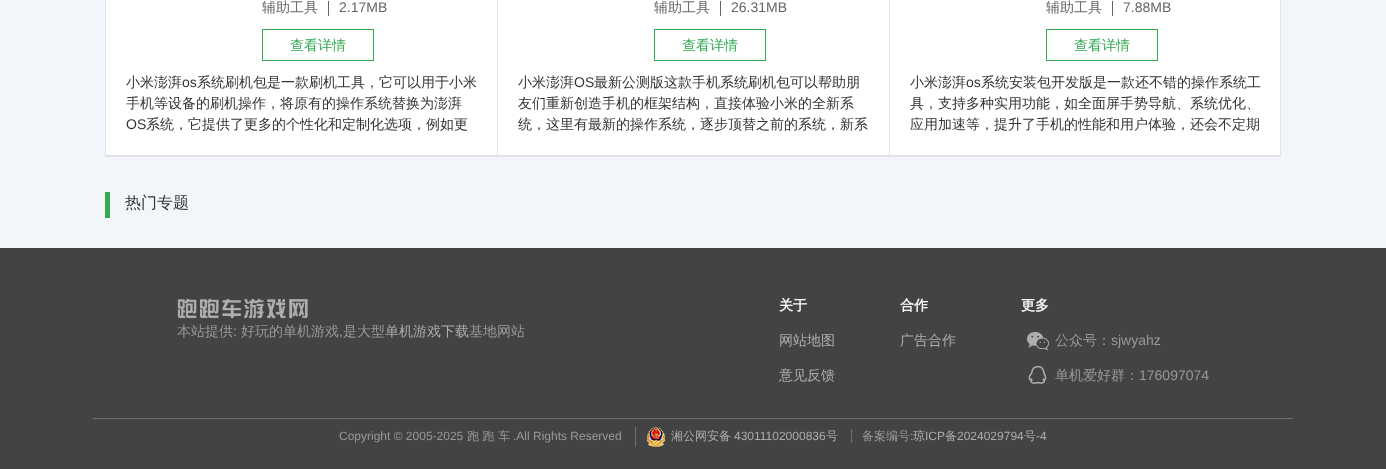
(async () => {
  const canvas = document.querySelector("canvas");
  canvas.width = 1386;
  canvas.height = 469;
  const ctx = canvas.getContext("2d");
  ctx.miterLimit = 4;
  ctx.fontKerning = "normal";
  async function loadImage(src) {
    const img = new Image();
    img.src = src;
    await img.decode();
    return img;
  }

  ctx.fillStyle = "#f2f5f9";
  ctx.fillRect(0, 0, 1386, 469);
  ctx.fillStyle = "#ffffff";
  ctx.fillRect(106, 0, 1174, 155);
  ctx.strokeStyle = "#e2e2e3";
  ctx.strokeRect(105.5, -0.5, 1175, 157);
  for (const [x, y, w, h, color] of [
    [497, 0, 1, 156, "#e2e2e3"],
    [106, 155, 392, 1, "#e2e2e3"],
    [328, 1, 1, 15, "#666666"],
  ]) {
    ctx.fillStyle = color;
    ctx.fillRect(x, y, w, h);
  }
  ctx.strokeStyle = "#33a952";
  ctx.strokeRect(262.5, 29.5, 111, 31);
  for (const [x, y, w, h, color] of [
    [889, 0, 1, 156, "#e2e2e3"],
    [498, 155, 782, 1, "#e2e2e3"],
    [720, 1, 1, 15, "#666666"],
  ]) {
    ctx.fillStyle = color;
    ctx.fillRect(x, y, w, h);
  }
  ctx.strokeRect(654.5, 29.5, 111, 31);
  ctx.fillRect(1112, 1, 1, 15);
  ctx.strokeRect(1046.5, 29.5, 111, 31);
  ctx.fillStyle = "#33a952";
  ctx.fillRect(105, 192, 5, 26);
  ctx.fillStyle = "#434343";
  ctx.fillRect(0, 248, 1386, 221);
  ctx.drawImage(await loadImage("img/1.png"), 177, 298, 131, 21);
  ctx.drawImage(await loadImage("img/2.png"), 1027, 331, 22, 20);
  ctx.drawImage(await loadImage("img/3.png"), 1028, 365, 19, 19);
  ctx.fillStyle = "#6f6f6f";
  ctx.fillRect(93, 418, 1200, 1);
  ctx.fillRect(635, 427, 1, 20);
  ctx.drawImage(await loadImage("img/4.png"), 647, 427, 18, 20);
  ctx.fillRect(851, 429, 1, 14);
  ctx.font = "500 14px WenQuanYi Zen Hei";
  ctx.fillStyle = "#666666";
  ctx.fillText("辅助工具", 262, 12);
  ctx.font = "14px Liberation Sans";
  ctx.fillText("2.17MB", 339, 12);
  ctx.font = "500 14px WenQuanYi Zen Hei";
  ctx.fillStyle = "#33a952";
  ctx.fillText("查看详情", 290, 50);
  ctx.fillStyle = "#333333";
  ctx.fillText("小米澎湃", 126, 87);
  ctx.font = "14px Liberation Sans";
  ctx.fillText("os", 182, 87);
  ctx.font = "500 14px WenQuanYi Zen Hei";
  ctx.fillText("系统刷机包是一款刷机工具，它可以用于小米", 197, 87);
  ctx.fillText("手机等设备的刷机操作，将原有的操作系统替换为澎湃", 126, 108);
  ctx.font = "14px Liberation Sans";
  ctx.fillText("OS", 126, 129);
  ctx.font = "500 14px WenQuanYi Zen Hei";
  ctx.fillText("系统，它提供了更多的个性化和定制化选项，例如更", 146, 129);
  ctx.fillStyle = "#666666";
  ctx.fillText("辅助工具", 654, 12);
  ctx.font = "14px Liberation Sans";
  ctx.fillText("26.31MB", 731, 12);
  ctx.font = "500 14px WenQuanYi Zen Hei";
  ctx.fillStyle = "#33a952";
  ctx.fillText("查看详情", 682, 50);
  ctx.fillStyle = "#333333";
  ctx.fillText("小米澎湃", 518, 87);
  ctx.font = "14px Liberation Sans";
  ctx.fillText("OS", 574, 87);
  ctx.font = "500 14px WenQuanYi Zen Hei";
  for (const [text, x, y] of [
    ["最新公测版这款手机系统刷机包可以帮助朋", 594, 87],
    ["友们重新创造手机的框架结构，直接体验小米的全新系", 518, 108],
    ["统，这里有最新的操作系统，逐步顶替之前的系统，新系", 518, 129],
  ]) {
    ctx.fillText(text, x, y);
  }
  ctx.fillStyle = "#666666";
  ctx.fillText("辅助工具", 1046, 12);
  ctx.font = "14px Liberation Sans";
  ctx.fillText("7.88MB", 1123, 12);
  ctx.font = "500 14px WenQuanYi Zen Hei";
  ctx.fillStyle = "#33a952";
  ctx.fillText("查看详情", 1074, 50);
  ctx.fillStyle = "#333333";
  ctx.fillText("小米澎湃", 910, 87);
  ctx.font = "14px Liberation Sans";
  ctx.fillText("os", 966, 87);
  ctx.font = "500 14px WenQuanYi Zen Hei";
  for (const [text, x, y] of [
    ["系统安装包开发版是一款还不错的操作系统工", 981, 87],
    ["具，支持多种实用功能，如全面屏手势导航、系统优化、", 910, 108],
    ["应用加速等，提升了手机的性能和用户体验，还会不定期", 910, 129],
  ]) {
    ctx.fillText(text, x, y);
  }
  ctx.font = "500 16px WenQuanYi Zen Hei";
  ctx.fillText("热门专题", 125, 208);
  ctx.font = "500 14px WenQuanYi Zen Hei";
  ctx.fillStyle = "#999999";
  ctx.fillText("本站提供", 177, 336);
  ctx.font = "14px Liberation Sans";
  ctx.fillText(":", 233, 336);
  ctx.font = "500 14px WenQuanYi Zen Hei";
  ctx.fillText("好玩的单机游戏", 241, 336);
  ctx.font = "14px Liberation Sans";
  ctx.fillText(",", 339, 336);
  ctx.font = "500 14px WenQuanYi Zen Hei";
  ctx.fillText("是大型", 343, 336);
  ctx.fillStyle = "#adadad";
  ctx.fillText("单机游戏下载", 385, 336);
  ctx.fillStyle = "#999999";
  ctx.fillText("基地网站", 469, 336);
  ctx.font = "bold 14px WenQuanYi Zen Hei";
  ctx.fillStyle = "#f7f7f7";
  ctx.fillText("关于", 779, 310);
  ctx.font = "500 14px WenQuanYi Zen Hei";
  ctx.fillStyle = "#adadad";
  ctx.fillText("网站地图", 779, 345);
  ctx.fillText("意见反馈", 779, 380);
  ctx.font = "bold 14px WenQuanYi Zen Hei";
  ctx.fillStyle = "#f7f7f7";
  ctx.fillText("合作", 900, 310);
  ctx.font = "500 14px WenQuanYi Zen Hei";
  ctx.fillStyle = "#adadad";
  ctx.fillText("广告合作", 900, 345);
  ctx.font = "bold 14px WenQuanYi Zen Hei";
  ctx.fillStyle = "#f7f7f7";
  ctx.fillText("更多", 1021, 310);
  ctx.font = "500 14px WenQuanYi Zen Hei";
  ctx.fillStyle = "#999999";
  ctx.fillText("公众号：", 1055, 345);
  ctx.font = "14px Liberation Sans";
  ctx.fillText("sjwyahz", 1111, 345);
  ctx.font = "500 14px WenQuanYi Zen Hei";
  ctx.fillText("单机爱好群：", 1055, 380);
  ctx.font = "14px Liberation Sans";
  ctx.fillText("176097074", 1139, 380);
  ctx.font = "12px Liberation Sans";
  ctx.fillText("Copyright © 2005-2025", 339, 440);
  ctx.font = "500 12px WenQuanYi Zen Hei";
  ctx.fillText("跑 跑 车", 467, 440);
  ctx.font = "12px Liberation Sans";
  ctx.fillText(".All Rights Reserved", 513, 440);
  ctx.font = "500 12px WenQuanYi Zen Hei";
  ctx.fillStyle = "#adadad";
  ctx.fillText("湘公网安备", 671, 440);
  ctx.font = "12px Liberation Sans";
  ctx.fillText("43011102000836", 734, 440);
  ctx.font = "500 12px WenQuanYi Zen Hei";
  ctx.fillText("号", 826, 440);
  ctx.fillStyle = "#999999";
  ctx.fillText("备案编号", 862, 440);
  ctx.font = "12px Liberation Sans";
  ctx.fillText(":", 910, 440);
  ctx.font = "500 12px WenQuanYi Zen Hei";
  ctx.fillStyle = "#adadad";
  ctx.fillText("琼", 913, 440);
  ctx.font = "12px Liberation Sans";
  ctx.fillText("ICP", 925, 440);
  ctx.font = "500 12px WenQuanYi Zen Hei";
  ctx.fillText("备", 945, 440);
  ctx.font = "12px Liberation Sans";
  ctx.fillText("2024029794", 957, 440);
  ctx.font = "500 12px WenQuanYi Zen Hei";
  ctx.fillText("号", 1024, 440);
  ctx.font = "12px Liberation Sans";
  ctx.fillText("-4", 1036, 440);
})();
